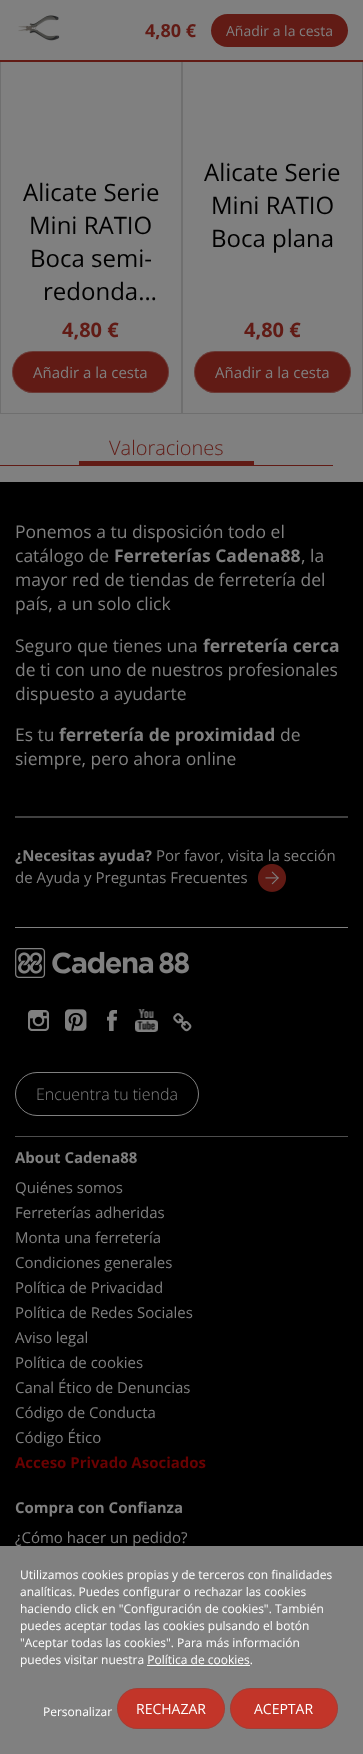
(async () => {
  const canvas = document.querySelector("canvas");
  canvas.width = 363;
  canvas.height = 1754;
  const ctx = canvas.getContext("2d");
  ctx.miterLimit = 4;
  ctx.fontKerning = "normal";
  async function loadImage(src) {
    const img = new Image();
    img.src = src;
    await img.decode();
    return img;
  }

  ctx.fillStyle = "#808080";
  ctx.fillRect(0, 0, 363, 1754);
  ctx.strokeStyle = "#6f6f6f";
  ctx.strokeRect(0.5, 53.5, 181, 360);
  ctx.strokeRect(182.5, 53.5, 180, 360);
  ctx.fillRect(0, 53, 363, 7);
  ctx.fillStyle = "#611b15";
  ctx.fillRect(0, 60, 363, 2);
  ctx.drawImage(await loadImage("img/1.png"), 18, 15, 42, 26);
  ctx.beginPath();
  ctx.roundRect(211, 14, 137, 33, 16.5);
  ctx.fill();
  ctx.beginPath();
  ctx.roundRect(12, 351, 157, 42, 21);
  ctx.fill();
  ctx.beginPath();
  ctx.roundRect(12.5, 351.5, 156, 41, 20.5);
  ctx.strokeStyle = "rgba(128, 128, 128, 0.3)";
  ctx.stroke();
  ctx.beginPath();
  ctx.roundRect(194, 351, 157, 42, 21);
  ctx.fill();
  ctx.beginPath();
  ctx.roundRect(194.5, 351.5, 156, 41, 20.5);
  ctx.stroke();
  for (const [x, y, w, h, color] of [
    [0, 465, 333, 1, "#611b15"],
    [79, 461, 175, 4, "#611b15"],
    [0, 482, 363, 1064, "#000000"],
    [15, 927, 333, 1, "#808080"],
    [15, 816, 333, 2, "#404040"],
  ]) {
    ctx.fillStyle = color;
    ctx.fillRect(x, y, w, h);
  }
  ctx.drawImage(await loadImage("img/2.png"), 258, 864, 28, 28);
  ctx.drawImage(await loadImage("img/3.png"), 15, 948, 174, 30);
  ctx.drawImage(await loadImage("img/4.png"), 28, 1010, 21, 21);
  ctx.drawImage(await loadImage("img/5.png"), 65, 1009, 22, 22);
  ctx.drawImage(await loadImage("img/6.png"), 107, 1010, 10, 21);
  ctx.drawImage(await loadImage("img/7.png"), 135, 1009, 23, 23);
  ctx.drawImage(await loadImage("img/8.png"), 173, 1013, 19, 19);
  ctx.beginPath();
  ctx.roundRect(15.5, 1072.5, 183, 43, 21.5);
  ctx.strokeStyle = "#808080";
  ctx.stroke();
  ctx.fillStyle = "#4d4d4d";
  ctx.fillRect(15, 1136, 333, 1);
  ctx.fillStyle = "#ffffff";
  ctx.fillRect(147, 1665, 103, 1);
  ctx.fillStyle = "#c23529";
  ctx.beginPath();
  ctx.roundRect(117, 1688, 108, 41, 20.5);
  ctx.fill();
  ctx.beginPath();
  ctx.roundRect(117.5, 1688.5, 107, 40, 20);
  ctx.strokeStyle = "rgba(86, 86, 86, 0.3)";
  ctx.stroke();
  ctx.beginPath();
  ctx.roundRect(230, 1688, 108, 41, 20.5);
  ctx.fill();
  ctx.beginPath();
  ctx.roundRect(230.5, 1688.5, 107, 40, 20);
  ctx.stroke();
  ctx.font = "bold 18px Open Sans";
  ctx.fillStyle = "#611b15";
  ctx.fillText("4,80 €", 145, 37);
  ctx.font = "14px Open Sans";
  ctx.fillStyle = "#808080";
  ctx.fillText("Añadir a la cesta", 226, 36);
  ctx.font = "24px Open Sans";
  ctx.fillStyle = "#000000";
  for (const [text, x, y] of [
    ["Alicate Serie", 23, 201],
    ["Mini RATIO", 29, 234],
    ["Boca semi-", 30, 267],
    ["redonda…", 43, 300],
  ]) {
    ctx.fillText(text, x, y);
  }
  ctx.font = "bold 20px Open Sans";
  ctx.fillStyle = "#611b15";
  ctx.fillText("4,80 €", 62, 337);
  ctx.font = "15px Open Sans";
  ctx.fillStyle = "#808080";
  ctx.fillText("Añadir a la cesta", 33, 378);
  ctx.font = "24px Open Sans";
  ctx.fillStyle = "#000000";
  for (const [text, x, y] of [
    ["Alicate Serie", 204, 181],
    ["Mini RATIO", 211, 214],
    ["Boca plana", 211, 247],
  ]) {
    ctx.fillText(text, x, y);
  }
  ctx.font = "bold 20px Open Sans";
  ctx.fillStyle = "#611b15";
  ctx.fillText("4,80 €", 244, 337);
  ctx.font = "15px Open Sans";
  ctx.fillStyle = "#808080";
  ctx.fillText("Añadir a la cesta", 215, 378);
  ctx.font = "300 20px Open Sans";
  ctx.fillStyle = "#611b15";
  ctx.fillText("Valoraciones", 109, 455);
  ctx.font = "17.5px Open Sans";
  ctx.fillStyle = "#808080";
  ctx.fillText("Ponemos a tu disposición todo el", 15, 538);
  ctx.fillText("catálogo de", 15, 562);
  ctx.font = "bold 17.5px Open Sans";
  ctx.fillText("Ferreterías Cadena88", 114, 562);
  ctx.font = "17.5px Open Sans";
  for (const [text, x, y] of [
    [", la", 301, 562],
    ["mayor red de tiendas de ferretería del", 15, 586],
    ["país, a un solo click", 15, 610],
    ["Seguro que tienes una", 15, 652],
  ]) {
    ctx.fillText(text, x, y);
  }
  ctx.font = "bold 17.5px Open Sans";
  ctx.fillText("ferretería cerca", 203, 652);
  ctx.font = "17.5px Open Sans";
  for (const [text, x, y] of [
    ["de ti con uno de nuestros profesionales", 15, 676],
    ["dispuesto a ayudarte", 15, 700],
    ["Es tu", 15, 741],
  ]) {
    ctx.fillText(text, x, y);
  }
  ctx.font = "bold 17.5px Open Sans";
  ctx.fillText("ferretería de proximidad", 59, 741);
  ctx.font = "17.5px Open Sans";
  ctx.fillText("de", 280, 741);
  ctx.fillText("siempre, pero ahora online", 15, 765);
  ctx.font = "bold 15px Open Sans";
  ctx.fillText("¿Necesitas ayuda?", 15, 861);
  ctx.font = "15px Open Sans";
  ctx.fillText("Por favor, visita la sección", 156, 861);
  ctx.fillText("de Ayuda y Preguntas Frecuentes", 15, 883);
  ctx.font = "300 16px Open Sans";
  ctx.fillText("Encuentra tu tienda", 36, 1100);
  ctx.font = "bold 15px Open Sans";
  ctx.fillText("About Cadena88", 15, 1163);
  ctx.font = "15px Open Sans";
  for (const [text, x, y] of [
    ["Quiénes somos", 15, 1193],
    ["Ferreterías adheridas", 15, 1218],
    ["Monta una ferretería", 15, 1243],
    ["Condiciones generales", 15, 1268],
    ["Política de Privacidad", 15, 1293],
    ["Política de Redes Sociales", 15, 1318],
    ["Aviso legal", 15, 1343],
    ["Política de cookies", 15, 1368],
    ["Canal Ético de Denuncias", 15, 1393],
    ["Código de Conducta", 15, 1418],
    ["Código Ético", 15, 1443],
  ]) {
    ctx.fillText(text, x, y);
  }
  ctx.font = "bold 15px Open Sans";
  ctx.fillStyle = "#690202";
  ctx.fillText("Acceso Privado Asociados", 15, 1468);
  ctx.fillStyle = "#808080";
  ctx.fillText("Compra con Confianza", 15, 1513);
  ctx.font = "15px Open Sans";
  ctx.fillText("¿Cómo hacer un pedido?", 15, 1543);
  ctx.font = "12px Open Sans";
  ctx.fillStyle = "#ffffff";
  for (const [text, x, y] of [
    ["Utilizamos cookies propias y de terceros con finalidades", 20, 1579],
    ["analíticas. Puedes configurar o rechazar las cookies", 20, 1596],
    ["haciendo click en \"Configuración de cookies\". También", 20, 1613],
    ["puedes aceptar todas las cookies pulsando el botón", 20, 1630],
    ["\"Aceptar todas las cookies\". Para más información", 20, 1647],
    ["puedes visitar nuestra Política de cookies.", 20, 1664],
    ["Personalizar", 43, 1716],
  ]) {
    ctx.fillText(text, x, y);
  }
  ctx.font = "14px Open Sans";
  ctx.fillText("RECHAZAR", 136, 1714);
  ctx.fillText("ACEPTAR", 254, 1714);
})();
